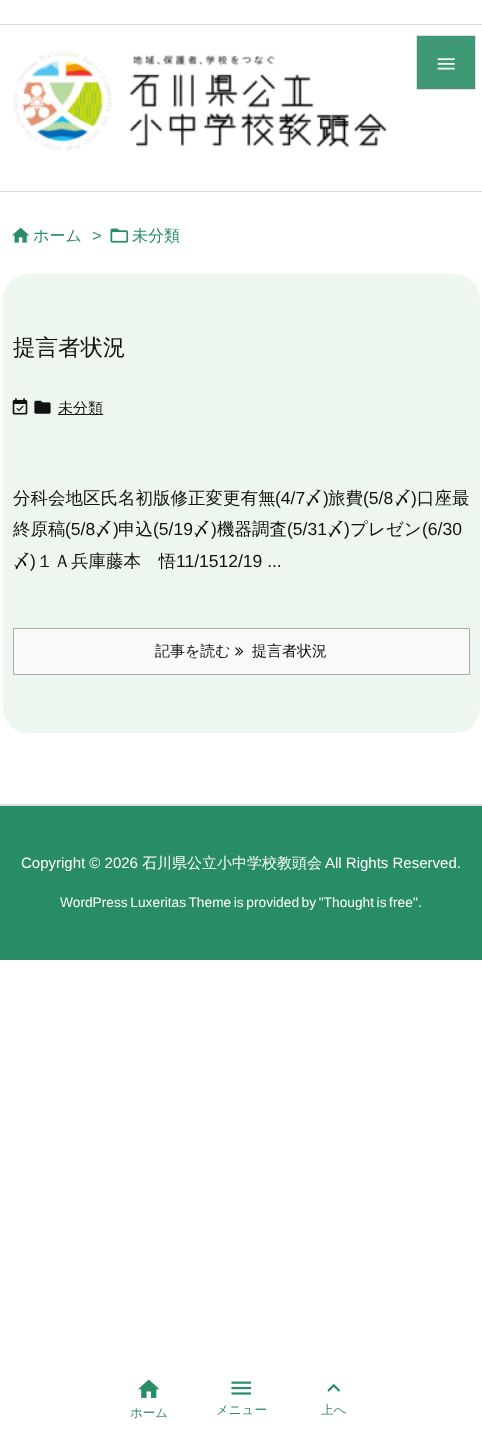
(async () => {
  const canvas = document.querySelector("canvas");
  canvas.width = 482;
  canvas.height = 1448;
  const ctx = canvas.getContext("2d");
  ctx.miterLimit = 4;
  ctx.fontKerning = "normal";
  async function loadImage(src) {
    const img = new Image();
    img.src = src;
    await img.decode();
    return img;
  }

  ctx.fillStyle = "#ffffff";
  ctx.fillRect(0, 0, 482, 1448);
  ctx.fillStyle = "#dddddd";
  ctx.fillRect(0, 24, 482, 1);
  ctx.fillRect(0, 191, 482, 1);
  ctx.fillStyle = "#3e9875";
  ctx.beginPath();
  ctx.rect(416.5, 35.5, 59, 54);
  ctx.fill();
  ctx.strokeStyle = "#e0e0e0";
  ctx.stroke();
  ctx.drawImage(await loadImage("img/1.png"), 437, 58, 18, 12);
  ctx.drawImage(await loadImage("img/2.png"), 12, 51, 375, 100);
  ctx.drawImage(await loadImage("img/3.png"), 12, 227, 18, 16);
  ctx.drawImage(await loadImage("img/4.png"), 110, 228, 19, 15);
  ctx.fillStyle = "#eef7ef";
  ctx.beginPath();
  ctx.roundRect(3, 274, 477, 459, 25);
  ctx.fill();
  ctx.drawImage(await loadImage("img/5.png"), 12, 398, 16, 17);
  ctx.drawImage(await loadImage("img/6.png"), 34, 400, 17, 14);
  ctx.fillStyle = "#111111";
  ctx.fillRect(58, 414, 45, 1);
  ctx.fillStyle = "#fafafa";
  ctx.beginPath();
  ctx.rect(13.5, 628.5, 456, 46);
  ctx.fill();
  ctx.strokeStyle = "#aaaaaa";
  ctx.stroke();
  ctx.drawImage(await loadImage("img/7.png"), 235, 647, 9, 9);
  ctx.fillStyle = "#dddddd";
  ctx.fillRect(0, 804, 482, 2);
  ctx.fillStyle = "#288c66";
  ctx.fillRect(0, 806, 482, 154);
  ctx.drawImage(await loadImage("img/8.png"), 138, 1379, 22, 19);
  ctx.drawImage(await loadImage("img/9.png"), 231, 1381, 20, 14);
  ctx.drawImage(await loadImage("img/10.png"), 327, 1383, 14, 9);
  ctx.font = "500 16px WenQuanYi Zen Hei";
  ctx.fillText("ホーム", 33, 241);
  ctx.font = "italic 16px Liberation Sans";
  ctx.fillText(">", 92, 241);
  ctx.font = "500 16px WenQuanYi Zen Hei";
  ctx.fillText("未分類", 132, 241);
  ctx.font = "500 22.5px WenQuanYi Zen Hei";
  ctx.fillStyle = "#111111";
  ctx.fillText("提言者状況", 13, 355);
  ctx.font = "500 15px WenQuanYi Zen Hei";
  ctx.fillText("未分類", 58, 413);
  ctx.font = "500 17.5px WenQuanYi Zen Hei";
  ctx.fillText("分科会地区氏名初版修正変更有無", 13, 504);
  ctx.font = "17.5px Liberation Sans";
  ctx.fillText("(4/7", 275, 504);
  ctx.font = "500 17.5px WenQuanYi Zen Hei";
  ctx.fillText("〆", 305, 504);
  ctx.font = "17.5px Liberation Sans";
  ctx.fillText(")", 323, 504);
  ctx.font = "500 17.5px WenQuanYi Zen Hei";
  ctx.fillText("旅費", 328, 504);
  ctx.font = "17.5px Liberation Sans";
  ctx.fillText("(5/8", 363, 504);
  ctx.font = "500 17.5px WenQuanYi Zen Hei";
  ctx.fillText("〆", 394, 504);
  ctx.font = "17.5px Liberation Sans";
  ctx.fillText(")", 411, 504);
  ctx.font = "500 17.5px WenQuanYi Zen Hei";
  ctx.fillText("口座最", 417, 504);
  ctx.fillText("終原稿", 13, 535);
  ctx.font = "17.5px Liberation Sans";
  ctx.fillText("(5/8", 65, 535);
  ctx.font = "500 17.5px WenQuanYi Zen Hei";
  ctx.fillText("〆", 95, 535);
  ctx.font = "17.5px Liberation Sans";
  ctx.fillText(")", 113, 535);
  ctx.font = "500 17.5px WenQuanYi Zen Hei";
  ctx.fillText("申込", 118, 535);
  ctx.font = "17.5px Liberation Sans";
  ctx.fillText("(5/19", 153, 535);
  ctx.font = "500 17.5px WenQuanYi Zen Hei";
  ctx.fillText("〆", 193, 535);
  ctx.font = "17.5px Liberation Sans";
  ctx.fillText(")", 211, 535);
  ctx.font = "500 17.5px WenQuanYi Zen Hei";
  ctx.fillText("機器調査", 217, 535);
  ctx.font = "17.5px Liberation Sans";
  ctx.fillText("(5/31", 287, 535);
  ctx.font = "500 17.5px WenQuanYi Zen Hei";
  ctx.fillText("〆", 327, 535);
  ctx.font = "17.5px Liberation Sans";
  ctx.fillText(")", 344, 535);
  ctx.font = "500 17.5px WenQuanYi Zen Hei";
  ctx.fillText("プレゼン", 350, 535);
  ctx.font = "17.5px Liberation Sans";
  ctx.fillText("(6/30", 422, 535);
  ctx.font = "500 17.5px WenQuanYi Zen Hei";
  ctx.fillText("〆", 13, 567);
  ctx.font = "17.5px Liberation Sans";
  ctx.fillText(")", 30, 567);
  ctx.font = "500 17.5px WenQuanYi Zen Hei";
  ctx.fillText("１Ａ兵庫藤本　悟", 36, 567);
  ctx.font = "17.5px Liberation Sans";
  ctx.fillText("11/1512/19 ...", 176, 567);
  ctx.font = "500 15px WenQuanYi Zen Hei";
  ctx.fillText("記事を読む", 155, 656);
  ctx.fillText("提言者状況", 252, 656);
  ctx.font = "15px Liberation Sans";
  ctx.fillStyle = "#ffffff";
  ctx.fillText("Copyright © 2026", 21, 868);
  ctx.font = "500 15px WenQuanYi Zen Hei";
  ctx.fillText("石川県公立小中学校教頭会", 142, 868);
  ctx.font = "15px Liberation Sans";
  ctx.fillText("All Rights Reserved.", 325, 868);
  ctx.wordSpacing = "-1.25px";
  ctx.font = "13.75px Liberation Sans";
  ctx.fillText("WordPress Luxeritas Theme is provided by \"Thought is free", 60, 907);
  ctx.wordSpacing = "0px";
  ctx.fillText("\".", 413, 907);
  ctx.font = "500 12.5px WenQuanYi Zen Hei";
  ctx.fillStyle = "#288c66";
  for (const [text, x, y] of [
    ["ホーム", 130, 1417],
    ["メニュー", 216, 1414],
    ["上へ", 321, 1414],
  ]) {
    ctx.fillText(text, x, y);
  }
})();
